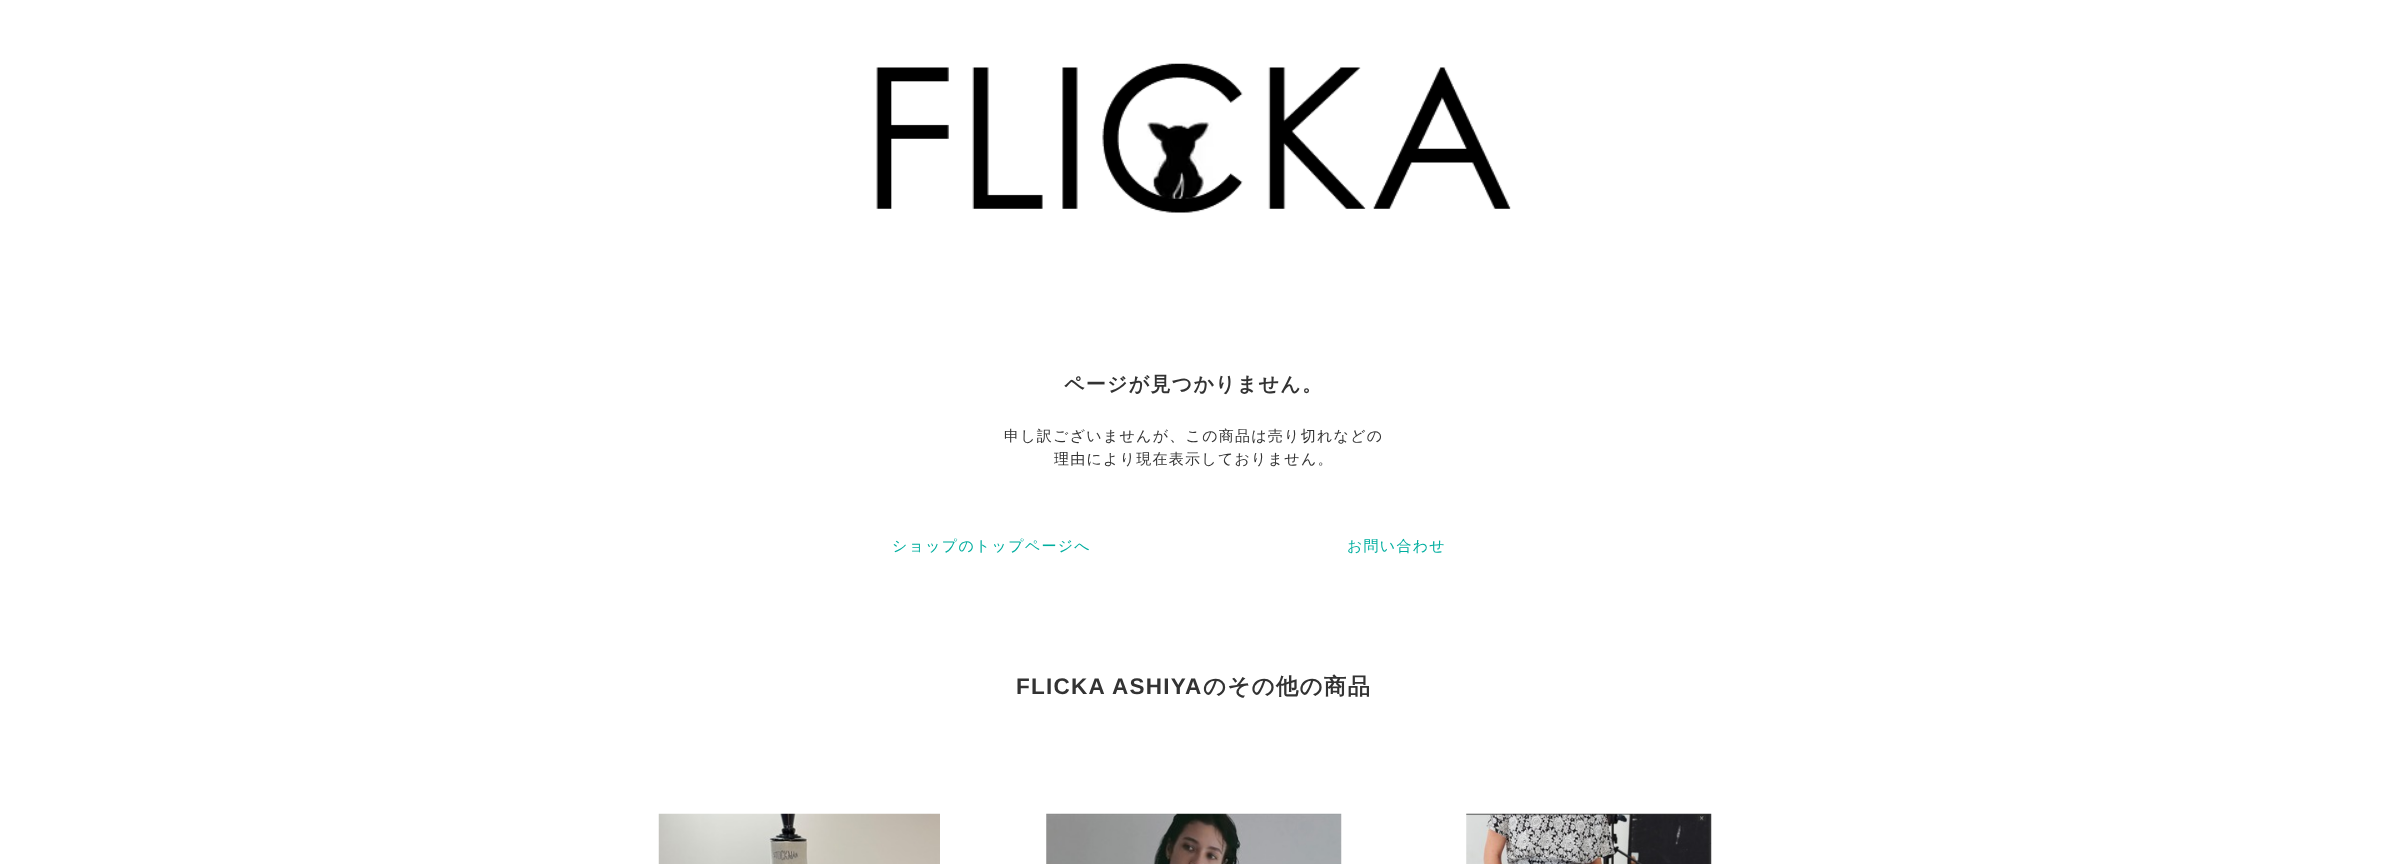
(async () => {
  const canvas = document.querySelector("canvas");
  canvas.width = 2387;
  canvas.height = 864;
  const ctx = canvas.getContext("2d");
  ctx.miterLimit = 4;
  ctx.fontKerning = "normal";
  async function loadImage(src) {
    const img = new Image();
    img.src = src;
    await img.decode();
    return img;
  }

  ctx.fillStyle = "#ffffff";
  ctx.fillRect(0, 0, 2387, 864);
  ctx.drawImage(await loadImage("img/1.png"), 876, 63, 635, 150);
  ctx.drawImage(await loadImage("img/2.png"), 658, 813, 282, 51);
  ctx.drawImage(await loadImage("img/3.png"), 1046, 813, 296, 51);
  ctx.drawImage(await loadImage("img/4.png"), 1466, 813, 246, 51);
  ctx.letterSpacing = "1.25px";
  ctx.font = "bold 20px WenQuanYi Zen Hei";
  ctx.fillStyle = "#333333";
  ctx.fillText("ページが見つかりません。", 1064, 391);
  ctx.font = "500 15px WenQuanYi Zen Hei";
  ctx.fillText("申し訳ございませんが、この商品は売り切れなどの", 1004, 441);
  ctx.fillText("理由により現在表示しておりません。", 1054, 464);
  ctx.fillStyle = "#00ae9f";
  ctx.fillText("ショップのトップページへ", 892, 551);
  ctx.fillText("お問い合わせ", 1347, 551);
  ctx.font = "bold 22.5px Liberation Sans";
  ctx.fillStyle = "#333333";
  ctx.fillText("FLICKA", 1016, 694);
  ctx.fillText("ASHIYA", 1112, 694);
  ctx.font = "bold 22.5px WenQuanYi Zen Hei";
  ctx.fillText("のその他の商品", 1203, 694);
})();
